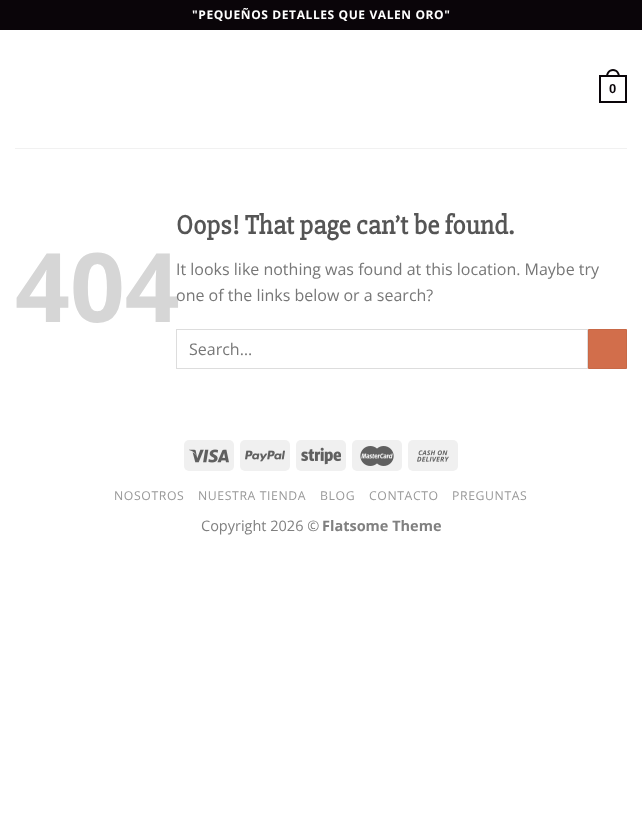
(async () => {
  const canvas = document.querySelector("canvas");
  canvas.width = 642;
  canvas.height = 819;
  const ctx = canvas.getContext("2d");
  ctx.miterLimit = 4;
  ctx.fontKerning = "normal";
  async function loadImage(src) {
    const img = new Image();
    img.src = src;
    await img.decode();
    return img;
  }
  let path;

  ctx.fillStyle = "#ffffff";
  ctx.fillRect(0, 0, 642, 819);
  ctx.fillStyle = "#0a0509";
  ctx.fillRect(0, 0, 642, 30);
  ctx.strokeStyle = "#0a0509";
  ctx.lineWidth = 2;
  ctx.strokeRect(600, 76, 26, 26);
  path = new Path2D("M613 69C617.5 69 620 73 620 77H606C606 73 608.5 69 613 69ZM613 71C616.5 71 618 74 618 77H608C608 74 609.5 71 613 71Z");
  ctx.fill(path, "evenodd");
  ctx.fillStyle = "#f1f1f1";
  ctx.fillRect(15, 148, 612, 1);
  ctx.strokeStyle = "#dddddd";
  ctx.lineWidth = 1;
  ctx.strokeRect(176.5, 329.5, 411, 39);
  ctx.fillStyle = "#d26e4b";
  ctx.beginPath();
  ctx.rect(588.5, 329.5, 38, 39);
  ctx.fill();
  ctx.strokeStyle = "#c86947";
  ctx.stroke();
  ctx.fillStyle = "#f0f0f0";
  ctx.beginPath();
  ctx.roundRect(184, 440, 50, 31, 5);
  ctx.fill();
  ctx.drawImage(await loadImage("img/1.png"), 189, 449, 40, 14);
  ctx.beginPath();
  ctx.roundRect(240, 440, 50, 31, 5);
  ctx.fill();
  ctx.drawImage(await loadImage("img/2.png"), 245, 450, 40, 12);
  ctx.beginPath();
  ctx.roundRect(296, 440, 50, 31, 5);
  ctx.fill();
  ctx.drawImage(await loadImage("img/3.png"), 301, 447, 40, 18);
  ctx.beginPath();
  ctx.roundRect(352, 440, 50, 31, 5);
  ctx.fill();
  ctx.drawImage(await loadImage("img/4.png"), 360, 446, 34, 20);
  ctx.beginPath();
  ctx.roundRect(408, 440, 50, 31, 5);
  ctx.fill();
  ctx.drawImage(await loadImage("img/5.png"), 417, 450, 32, 12);
  ctx.letterSpacing = "0.6px";
  ctx.font = "bold 12px Open Sans";
  ctx.fillStyle = "#ffffff";
  ctx.fillText("\"PEQUEÑOS DETALLES QUE VALEN ORO\"", 192, 19);
  ctx.letterSpacing = "0px";
  ctx.font = "bold 13px Liberation Sans";
  ctx.fillStyle = "#0a0509";
  ctx.fillText("0", 609, 93);
  ctx.font = "bold 96px Open Sans";
  ctx.fillStyle = "#d6d6d6";
  ctx.fillText("404", 15, 322);
  ctx.font = "bold 27.25px 'Slabo 27px'";
  ctx.fillStyle = "#555555";
  ctx.fillText("Oops! That page can’t be found.", 176, 234);
  ctx.font = "16px Open Sans";
  ctx.fillStyle = "#777777";
  for (const [text, x, y] of [
    ["It looks like nothing was found at this location. Maybe try", 176, 275],
    ["one of the links below or a search?", 176, 301],
    ["Search…", 189, 355],
  ]) {
    ctx.fillText(text, x, y);
  }
  ctx.letterSpacing = "0.6px";
  ctx.font = "12.25px Open Sans";
  ctx.fillStyle = "#999999";
  for (const [text, x, y] of [
    ["NOSOTROS", 114, 500],
    ["NUESTRA TIENDA", 198, 500],
    ["BLOG", 320, 500],
    ["CONTACTO", 369, 500],
    ["PREGUNTAS", 452, 500],
  ]) {
    ctx.fillText(text, x, y);
  }
  ctx.letterSpacing = "0px";
  ctx.font = "14.5px Open Sans";
  ctx.fillStyle = "#808080";
  ctx.fillText("Copyright 2026 ©", 201, 531);
  ctx.font = "bold 14.5px Open Sans";
  ctx.fillText("Flatsome Theme", 322, 531);
})();
